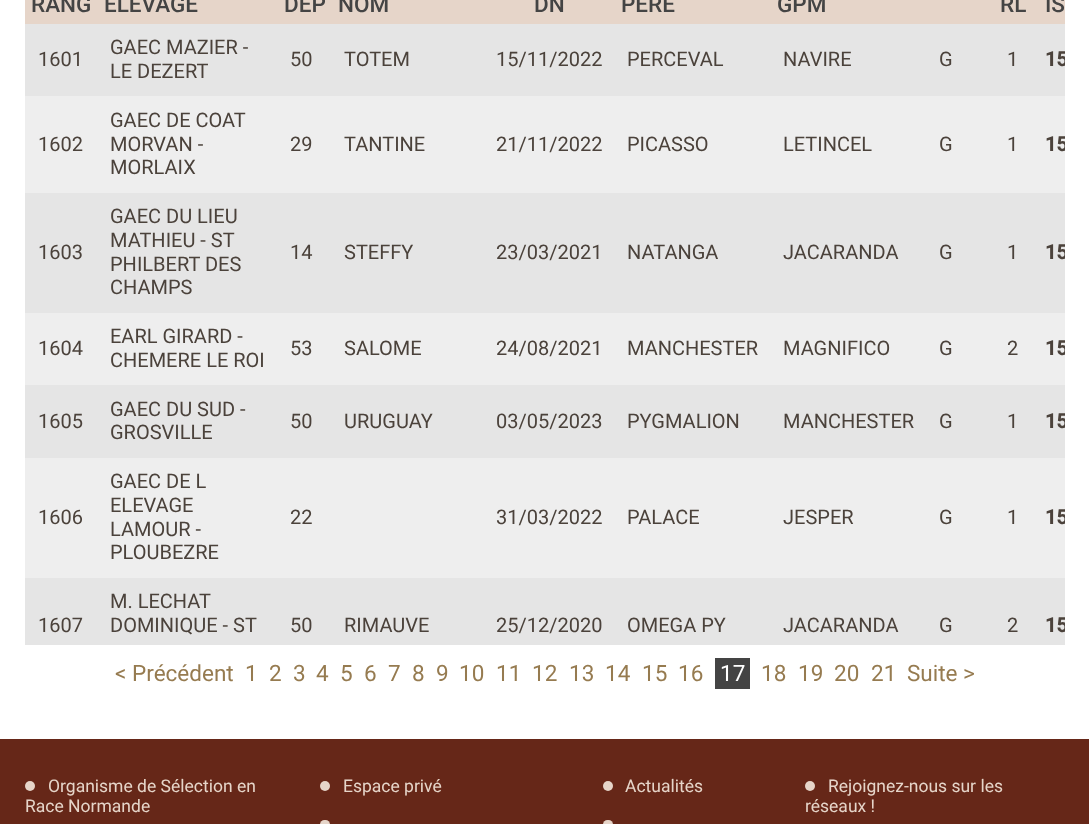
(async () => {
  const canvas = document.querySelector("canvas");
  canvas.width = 1089;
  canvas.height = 824;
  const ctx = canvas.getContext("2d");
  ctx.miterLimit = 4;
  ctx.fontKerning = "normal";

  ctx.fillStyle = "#ffffff";
  ctx.fillRect(0, 0, 1089, 824);
  for (const [x, y, w, h, color] of [
    [25, 0, 1040, 24, "#e6d5c9"],
    [25, 24, 1040, 72, "#e5e5e5"],
    [25, 96, 1040, 97, "#eeeeee"],
    [25, 193, 1040, 120, "#e5e5e5"],
    [25, 313, 1040, 72, "#eeeeee"],
    [25, 385, 1040, 73, "#e5e5e5"],
    [25, 458, 1040, 120, "#eeeeee"],
    [25, 578, 1040, 67, "#e5e5e5"],
    [715, 658, 35, 31, "#444444"],
    [0, 739, 1089, 85, "#662718"],
  ]) {
    ctx.fillStyle = color;
    ctx.fillRect(x, y, w, h);
  }
  ctx.fillStyle = "#e6d5c9";
  ctx.beginPath();
  ctx.arc(30, 786, 5, 0, Math.PI * 2);
  ctx.fill();
  ctx.beginPath();
  ctx.arc(325, 786, 5, 0, Math.PI * 2);
  ctx.fill();
  ctx.beginPath();
  ctx.roundRect(320, 820, 10, 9, 5);
  ctx.fill();
  ctx.beginPath();
  ctx.arc(608, 786, 5, 0, Math.PI * 2);
  ctx.fill();
  ctx.beginPath();
  ctx.roundRect(603, 820, 10, 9, 5);
  ctx.fill();
  ctx.beginPath();
  ctx.arc(810, 786, 5, 0, Math.PI * 2);
  ctx.fill();
  ctx.font = "500 22.5px Roboto";
  ctx.fillStyle = "#444444";
  for (const [text, x, y] of [
    ["RANG", 31, 12],
    ["ELEVAGE", 104, 12],
    ["DEP", 284, 12],
    ["NOM", 338, 12],
    ["DN", 534, 12],
    ["PÈRE", 621, 12],
    ["GPM", 777, 12],
    ["RL", 1000, 12],
    ["IS", 1045, 12],
  ]) {
    ctx.fillText(text, x, y);
  }
  ctx.font = "20px Roboto";
  ctx.fillStyle = "#4b423b";
  for (const [text, x, y] of [
    ["1601", 38, 66],
    ["GAEC MAZIER -", 110, 54],
    ["LE DEZERT", 110, 78],
    ["50", 290, 66],
    ["TOTEM", 344, 66],
    ["15/11/2022", 496, 66],
    ["PERCEVAL", 627, 66],
    ["NAVIRE", 783, 66],
    ["G", 939, 66],
    ["1", 1007, 66],
  ]) {
    ctx.fillText(text, x, y);
  }
  ctx.save();
  ctx.beginPath();
  ctx.rect(25, 0, 1040, 645);
  ctx.clip();
  ctx.font = "bold 20px Roboto";
  ctx.fillText("15", 1045, 66);
  ctx.restore();
  for (const [text, x, y] of [
    ["1602", 38, 151],
    ["GAEC DE COAT", 110, 127],
    ["MORVAN -", 110, 151],
    ["MORLAIX", 110, 174],
    ["29", 290, 151],
    ["TANTINE", 344, 151],
    ["21/11/2022", 496, 151],
    ["PICASSO", 627, 151],
    ["LETINCEL", 783, 151],
    ["G", 939, 151],
    ["1", 1007, 151],
  ]) {
    ctx.fillText(text, x, y);
  }
  ctx.save();
  ctx.beginPath();
  ctx.rect(25, 0, 1040, 645);
  ctx.clip();
  ctx.font = "bold 20px Roboto";
  ctx.fillText("15", 1045, 151);
  ctx.restore();
  for (const [text, x, y] of [
    ["1603", 38, 259],
    ["GAEC DU LIEU", 110, 223],
    ["MATHIEU - ST", 110, 247],
    ["PHILBERT DES", 110, 271],
    ["CHAMPS", 110, 294],
    ["14", 290, 259],
    ["STEFFY", 344, 259],
    ["23/03/2021", 496, 259],
    ["NATANGA", 627, 259],
    ["JACARANDA", 783, 259],
    ["G", 939, 259],
    ["1", 1007, 259],
  ]) {
    ctx.fillText(text, x, y);
  }
  ctx.save();
  ctx.beginPath();
  ctx.rect(25, 0, 1040, 645);
  ctx.clip();
  ctx.font = "bold 20px Roboto";
  ctx.fillText("15", 1045, 259);
  ctx.restore();
  for (const [text, x, y] of [
    ["1604", 38, 355],
    ["EARL GIRARD -", 110, 343],
    ["CHEMERE LE ROI", 110, 367],
    ["53", 290, 355],
    ["SALOME", 344, 355],
    ["24/08/2021", 496, 355],
    ["MANCHESTER", 627, 355],
    ["MAGNIFICO", 783, 355],
    ["G", 939, 355],
    ["2", 1007, 355],
  ]) {
    ctx.fillText(text, x, y);
  }
  ctx.save();
  ctx.beginPath();
  ctx.rect(25, 0, 1040, 645);
  ctx.clip();
  ctx.font = "bold 20px Roboto";
  ctx.fillText("15", 1045, 355);
  ctx.restore();
  for (const [text, x, y] of [
    ["1605", 38, 428],
    ["GAEC DU SUD -", 110, 416],
    ["GROSVILLE", 110, 439],
    ["50", 290, 428],
    ["URUGUAY", 344, 428],
    ["03/05/2023", 496, 428],
    ["PYGMALION", 627, 428],
    ["MANCHESTER", 783, 428],
    ["G", 939, 428],
    ["1", 1007, 428],
  ]) {
    ctx.fillText(text, x, y);
  }
  ctx.save();
  ctx.beginPath();
  ctx.rect(25, 0, 1040, 645);
  ctx.clip();
  ctx.font = "bold 20px Roboto";
  ctx.fillText("15", 1045, 428);
  ctx.restore();
  for (const [text, x, y] of [
    ["1606", 38, 524],
    ["GAEC DE L", 110, 488],
    ["ELEVAGE", 110, 512],
    ["LAMOUR -", 110, 536],
    ["PLOUBEZRE", 110, 559],
    ["22", 290, 524],
    ["31/03/2022", 496, 524],
    ["PALACE", 627, 524],
    ["JESPER", 783, 524],
    ["G", 939, 524],
    ["1", 1007, 524],
  ]) {
    ctx.fillText(text, x, y);
  }
  ctx.save();
  ctx.beginPath();
  ctx.rect(25, 0, 1040, 645);
  ctx.clip();
  ctx.font = "bold 20px Roboto";
  ctx.fillText("15", 1045, 524);
  ctx.restore();
  for (const [text, x, y] of [
    ["1607", 38, 632],
    ["M. LECHAT", 110, 608],
    ["DOMINIQUE - ST", 110, 632],
    ["50", 290, 632],
    ["RIMAUVE", 344, 632],
    ["25/12/2020", 496, 632],
    ["OMEGA PY", 627, 632],
    ["JACARANDA", 783, 632],
    ["G", 939, 632],
    ["2", 1007, 632],
  ]) {
    ctx.fillText(text, x, y);
  }
  ctx.save();
  ctx.beginPath();
  ctx.rect(25, 0, 1040, 645);
  ctx.clip();
  ctx.font = "bold 20px Roboto";
  ctx.fillText("15", 1045, 632);
  ctx.restore();
  ctx.font = "22.5px Roboto";
  ctx.fillStyle = "#967b50";
  for (const [text, x, y] of [
    ["< Précédent", 115, 681],
    ["1", 245, 681],
    ["2", 269, 681],
    ["3", 293, 681],
    ["4", 316, 681],
    ["5", 340, 681],
    ["6", 364, 681],
    ["7", 388, 681],
    ["8", 412, 681],
    ["9", 436, 681],
    ["10", 459, 681],
    ["11", 496, 681],
    ["12", 532, 681],
    ["13", 569, 681],
    ["14", 605, 681],
    ["15", 642, 681],
    ["16", 678, 681],
  ]) {
    ctx.fillText(text, x, y);
  }
  ctx.fillStyle = "#ffffff";
  ctx.fillText("17", 720, 681);
  ctx.fillStyle = "#967b50";
  for (const [text, x, y] of [
    ["18", 761, 681],
    ["19", 798, 681],
    ["20", 834, 681],
    ["21", 871, 681],
    ["Suite >", 907, 681],
  ]) {
    ctx.fillText(text, x, y);
  }
  ctx.font = "17.5px Roboto";
  ctx.fillStyle = "#e6d5c9";
  for (const [text, x, y] of [
    ["Organisme de Sélection en", 48, 792],
    ["Race Normande", 25, 812],
    ["Espace privé", 343, 792],
    ["Actualités", 625, 792],
    ["Rejoignez-nous sur les", 828, 792],
    ["réseaux !", 805, 812],
  ]) {
    ctx.fillText(text, x, y);
  }
})();
